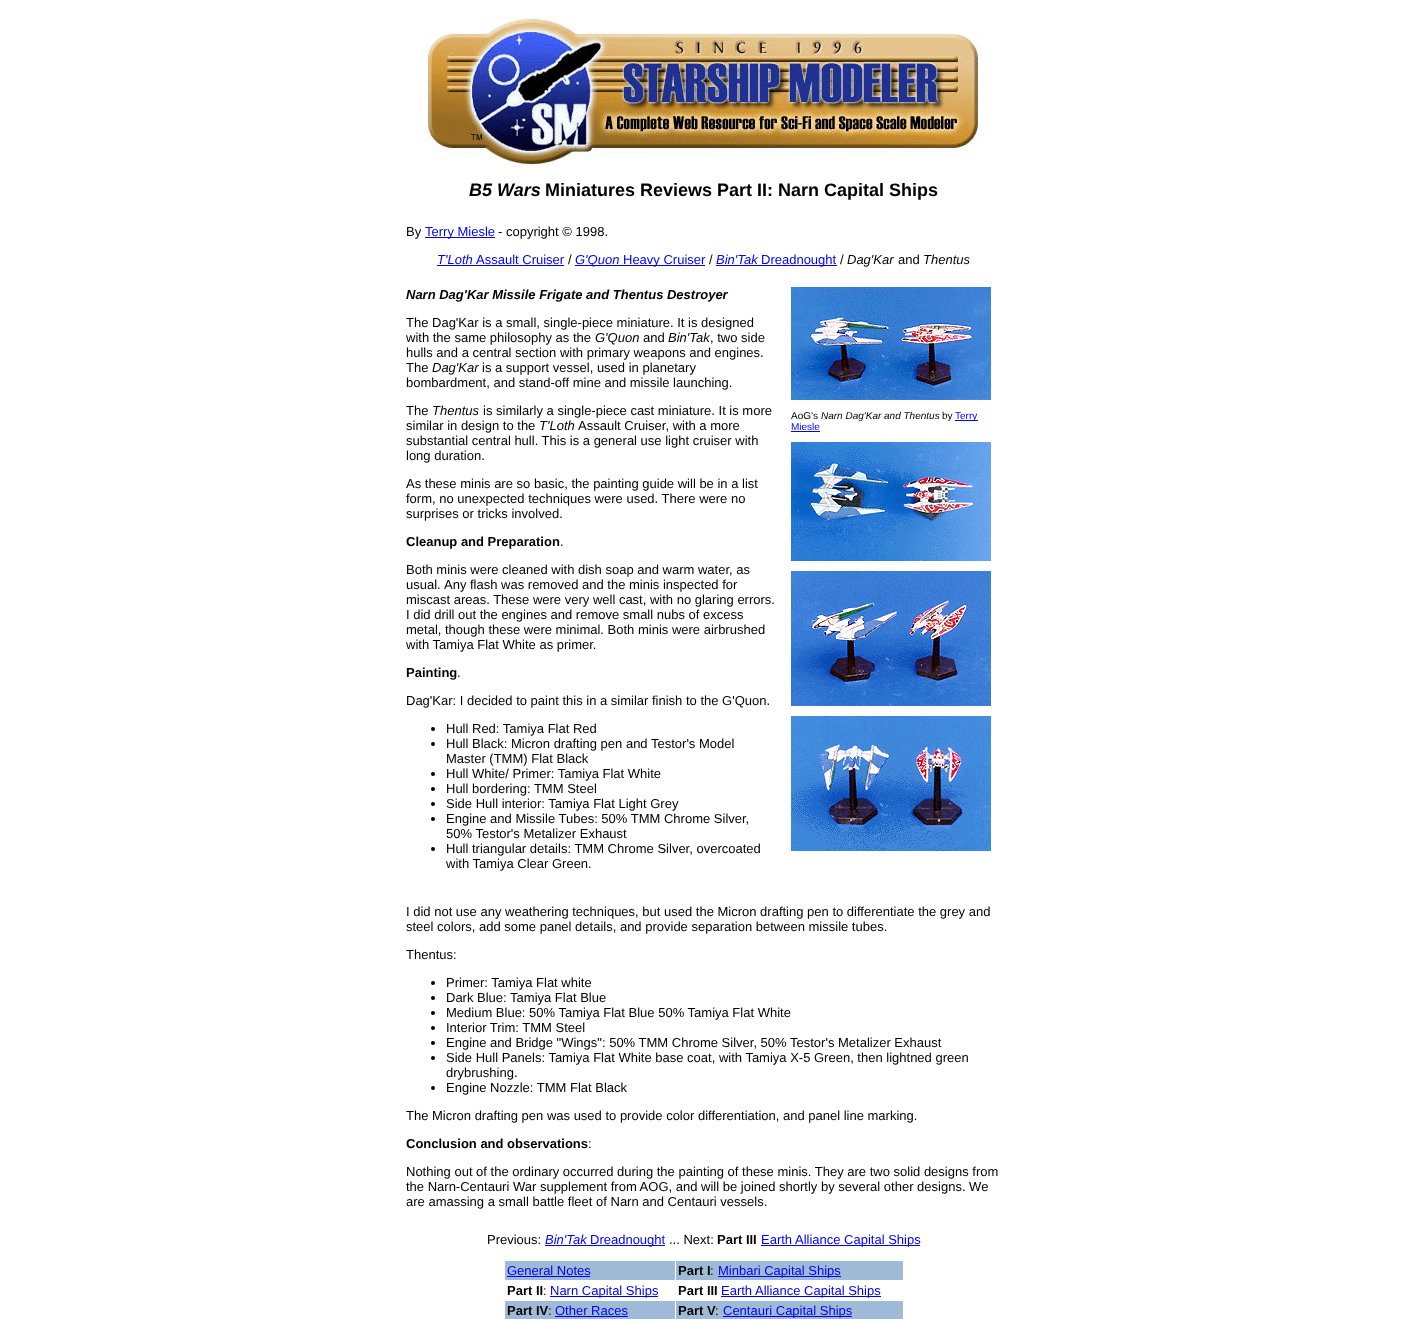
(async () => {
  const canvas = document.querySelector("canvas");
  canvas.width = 1407;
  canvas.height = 1319;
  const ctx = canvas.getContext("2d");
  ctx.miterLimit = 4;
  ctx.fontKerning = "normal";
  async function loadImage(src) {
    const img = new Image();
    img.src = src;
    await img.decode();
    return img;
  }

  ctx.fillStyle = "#ffffff";
  ctx.fillRect(0, 0, 1407, 1319);
  ctx.drawImage(await loadImage("img/1.png"), 426, 16, 556, 151);
  for (const [x, y, w, h, color] of [
    [425, 237, 70, 1, "#0000f8"],
    [437, 265, 127, 1, "#0000f8"],
    [575, 265, 130, 1, "#0000f8"],
    [716, 265, 121, 1, "#0000f8"],
  ]) {
    ctx.fillStyle = color;
    ctx.fillRect(x, y, w, h);
  }
  ctx.fillStyle = "#000000";
  ctx.beginPath();
  ctx.arc(433, 729, 2, 0, Math.PI * 2);
  ctx.fill();
  ctx.beginPath();
  ctx.arc(433, 744, 2, 0, Math.PI * 2);
  ctx.fill();
  ctx.beginPath();
  ctx.arc(433, 774, 2, 0, Math.PI * 2);
  ctx.fill();
  ctx.beginPath();
  ctx.arc(433, 789, 2, 0, Math.PI * 2);
  ctx.fill();
  ctx.beginPath();
  ctx.arc(433, 804, 2, 0, Math.PI * 2);
  ctx.fill();
  ctx.beginPath();
  ctx.arc(433, 819, 2, 0, Math.PI * 2);
  ctx.fill();
  ctx.beginPath();
  ctx.arc(433, 849, 2, 0, Math.PI * 2);
  ctx.fill();
  ctx.drawImage(await loadImage("img/2.png"), 791, 287, 200, 113);
  ctx.fillStyle = "#0000f8";
  ctx.fillRect(955, 420, 23, 1);
  ctx.fillRect(791, 431, 29, 1);
  ctx.drawImage(await loadImage("img/3.png"), 791, 442, 200, 119);
  ctx.drawImage(await loadImage("img/4.png"), 791, 571, 200, 135);
  ctx.drawImage(await loadImage("img/5.png"), 791, 716, 200, 135);
  ctx.fillStyle = "#000000";
  ctx.beginPath();
  ctx.arc(433, 983, 2, 0, Math.PI * 2);
  ctx.fill();
  ctx.beginPath();
  ctx.arc(433, 998, 2, 0, Math.PI * 2);
  ctx.fill();
  ctx.beginPath();
  ctx.arc(433, 1013, 2, 0, Math.PI * 2);
  ctx.fill();
  ctx.beginPath();
  ctx.arc(433, 1028, 2, 0, Math.PI * 2);
  ctx.fill();
  ctx.beginPath();
  ctx.arc(433, 1043, 2, 0, Math.PI * 2);
  ctx.fill();
  ctx.beginPath();
  ctx.arc(433, 1058, 2, 0, Math.PI * 2);
  ctx.fill();
  ctx.beginPath();
  ctx.arc(433, 1088, 2, 0, Math.PI * 2);
  ctx.fill();
  for (const [x, y, w, h, color] of [
    [545, 1245, 120, 1, "#0000f8"],
    [761, 1245, 159, 1, "#0000f8"],
    [505, 1261, 170, 19, "#9fbad7"],
    [507, 1276, 83, 1, "#0000f8"],
    [676, 1261, 227, 19, "#9fbad7"],
    [718, 1276, 123, 1, "#0000f8"],
    [550, 1296, 108, 1, "#0000f8"],
    [721, 1296, 160, 1, "#0000f8"],
    [505, 1301, 170, 18, "#9fbad7"],
    [555, 1316, 73, 1, "#0000f8"],
    [676, 1301, 227, 18, "#9fbad7"],
    [723, 1316, 129, 1, "#0000f8"],
  ]) {
    ctx.fillStyle = color;
    ctx.fillRect(x, y, w, h);
  }
  ctx.font = "italic bold 18px Liberation Sans";
  ctx.fillStyle = "#000000";
  ctx.fillText("B5 Wars", 469, 196);
  ctx.font = "bold 18px Liberation Sans";
  ctx.fillText("Miniatures Reviews Part II: Narn Capital Ships", 545, 196);
  ctx.font = "13px Liberation Sans";
  ctx.fillText("By", 406, 236);
  ctx.fillStyle = "#0000f8";
  ctx.fillText("Terry Miesle", 425, 236);
  ctx.fillStyle = "#000000";
  ctx.fillText("- copyright © 1998.", 498, 236);
  ctx.font = "italic 13px Liberation Sans";
  ctx.fillStyle = "#0000f8";
  ctx.fillText("T'Loth", 437, 264);
  ctx.font = "13px Liberation Sans";
  ctx.fillText("Assault Cruiser", 476, 264);
  ctx.fillStyle = "#000000";
  ctx.fillText("/", 568, 264);
  ctx.font = "italic 13px Liberation Sans";
  ctx.fillStyle = "#0000f8";
  ctx.fillText("G'Quon", 575, 264);
  ctx.font = "13px Liberation Sans";
  ctx.fillText("Heavy Cruiser", 623, 264);
  ctx.fillStyle = "#000000";
  ctx.fillText("/", 709, 264);
  ctx.font = "italic 13px Liberation Sans";
  ctx.fillStyle = "#0000f8";
  ctx.fillText("Bin'Tak", 716, 264);
  ctx.font = "13px Liberation Sans";
  ctx.fillText("Dreadnought", 761, 264);
  ctx.fillStyle = "#000000";
  ctx.fillText("/", 840, 264);
  ctx.font = "italic 13px Liberation Sans";
  ctx.fillText("Dag'Kar", 847, 264);
  ctx.font = "13px Liberation Sans";
  ctx.fillText("and", 898, 264);
  ctx.font = "italic 13px Liberation Sans";
  ctx.fillText("Thentus", 923, 264);
  ctx.font = "italic bold 13px Liberation Sans";
  ctx.fillText("Narn Dag'Kar Missile Frigate and Thentus Destroyer", 406, 299);
  ctx.font = "13px Liberation Sans";
  ctx.fillText("The Dag'Kar is a small, single-piece miniature. It is designed", 406, 327);
  ctx.fillText("with the same philosophy as the", 406, 342);
  ctx.font = "italic 13px Liberation Sans";
  ctx.fillText("G'Quon", 595, 342);
  ctx.font = "13px Liberation Sans";
  ctx.fillText("and", 643, 342);
  ctx.font = "italic 13px Liberation Sans";
  ctx.fillText("Bin'Tak", 668, 342);
  ctx.font = "13px Liberation Sans";
  for (const [text, x, y] of [
    [", two side", 710, 342],
    ["hulls and a central section with primary weapons and engines.", 406, 357],
    ["The", 406, 372],
  ]) {
    ctx.fillText(text, x, y);
  }
  ctx.font = "italic 13px Liberation Sans";
  ctx.fillText("Dag'Kar", 432, 372);
  ctx.font = "13px Liberation Sans";
  for (const [text, x, y] of [
    ["is a support vessel, used in planetary", 482, 372],
    ["bombardment, and stand-off mine and missile launching.", 406, 387],
    ["The", 406, 415],
  ]) {
    ctx.fillText(text, x, y);
  }
  ctx.font = "italic 13px Liberation Sans";
  ctx.fillText("Thentus", 432, 415);
  ctx.font = "13px Liberation Sans";
  ctx.fillText("is similarly a single-piece cast miniature. It is more", 483, 415);
  ctx.fillText("similar in design to the", 406, 430);
  ctx.font = "italic 13px Liberation Sans";
  ctx.fillText("T'Loth", 539, 430);
  ctx.font = "13px Liberation Sans";
  for (const [text, x, y] of [
    ["Assault Cruiser, with a more", 578, 430],
    ["substantial central hull. This is a general use light cruiser with", 406, 445],
    ["long duration.", 406, 460],
    ["As these minis are so basic, the painting guide will be in a list", 406, 488],
    ["form, no unexpected techniques were used. There were no", 406, 503],
    ["surprises or tricks involved.", 406, 518],
  ]) {
    ctx.fillText(text, x, y);
  }
  ctx.font = "bold 13px Liberation Sans";
  ctx.fillText("Cleanup and Preparation", 406, 546);
  ctx.font = "13px Liberation Sans";
  for (const [text, x, y] of [
    [".", 560, 546],
    ["Both minis were cleaned with dish soap and warm water, as", 406, 574],
    ["usual.", 406, 589],
    ["Any flash was removed and the minis inspected for", 444, 589],
    ["miscast areas. These were very well cast, with no glaring errors.", 406, 604],
    ["I did drill out the engines and remove small nubs of excess", 406, 619],
    ["metal, though these were minimal. Both minis were airbrushed", 406, 634],
    ["with Tamiya Flat White as primer.", 406, 649],
  ]) {
    ctx.fillText(text, x, y);
  }
  ctx.font = "bold 13px Liberation Sans";
  ctx.fillText("Painting", 406, 677);
  ctx.font = "13px Liberation Sans";
  for (const [text, x, y] of [
    [".", 457, 677],
    ["Dag'Kar: I decided to paint this in a similar finish to the G'Quon.", 406, 705],
    ["Hull Red: Tamiya Flat Red", 446, 733],
    ["Hull Black: Micron drafting pen and Testor's Model", 446, 748],
    ["Master (TMM) Flat Black", 446, 763],
    ["Hull White/ Primer: Tamiya Flat White", 446, 778],
    ["Hull bordering: TMM Steel", 446, 793],
    ["Side Hull interior: Tamiya Flat Light Grey", 446, 808],
    ["Engine and Missile Tubes: 50% TMM Chrome Silver,", 446, 823],
    ["50% Testor's Metalizer Exhaust", 446, 838],
    ["Hull triangular details: TMM Chrome Silver, overcoated", 446, 853],
    ["with Tamiya Clear Green.", 446, 868],
  ]) {
    ctx.fillText(text, x, y);
  }
  ctx.font = "10px Liberation Sans";
  ctx.fillText("AoG's", 791, 419);
  ctx.font = "italic 10px Liberation Sans";
  ctx.fillText("Narn Dag'Kar and Thentus", 821, 419);
  ctx.font = "10px Liberation Sans";
  ctx.fillText("by", 942, 419);
  ctx.fillStyle = "#0000f8";
  ctx.fillText("Terry", 955, 419);
  ctx.fillText("Miesle", 791, 430);
  ctx.font = "13px Liberation Sans";
  ctx.fillStyle = "#000000";
  for (const [text, x, y] of [
    ["I did not use any weathering techniques, but used the Micron drafting pen to differentiate the grey and", 406, 916],
    ["steel colors, add some panel details, and provide separation between missile tubes.", 406, 931],
    ["Thentus:", 406, 959],
    ["Primer: Tamiya Flat white", 446, 987],
    ["Dark Blue: Tamiya Flat Blue", 446, 1002],
    ["Medium Blue: 50% Tamiya Flat Blue 50% Tamiya Flat White", 446, 1017],
    ["Interior Trim: TMM Steel", 446, 1032],
    ["Engine and Bridge \"Wings\": 50% TMM Chrome Silver, 50% Testor's Metalizer Exhaust", 446, 1047],
    ["Side Hull Panels: Tamiya Flat White base coat, with Tamiya X-5 Green, then lightned green", 446, 1062],
    ["drybrushing.", 446, 1077],
    ["Engine Nozzle: TMM Flat Black", 446, 1092],
    ["The Micron drafting pen was used to provide color differentiation, and panel line marking.", 406, 1120],
  ]) {
    ctx.fillText(text, x, y);
  }
  ctx.font = "bold 13px Liberation Sans";
  ctx.fillText("Conclusion and observations", 406, 1148);
  ctx.font = "13px Liberation Sans";
  for (const [text, x, y] of [
    [":", 588, 1148],
    ["Nothing out of the ordinary occurred during the painting of these minis. They are two solid designs from", 406, 1176],
    ["the Narn-Centauri War supplement from AOG, and will be joined shortly by several other designs. We", 406, 1191],
    ["are amassing a small battle fleet of Narn and Centauri vessels.", 406, 1206],
    ["Previous:", 487, 1244],
  ]) {
    ctx.fillText(text, x, y);
  }
  ctx.font = "italic 13px Liberation Sans";
  ctx.fillStyle = "#0000f8";
  ctx.fillText("Bin'Tak", 545, 1244);
  ctx.font = "13px Liberation Sans";
  ctx.fillText("Dreadnought", 590, 1244);
  ctx.fillStyle = "#000000";
  ctx.fillText("... Next:", 669, 1244);
  ctx.font = "bold 13px Liberation Sans";
  ctx.fillText("Part III", 717, 1244);
  ctx.font = "13px Liberation Sans";
  ctx.fillStyle = "#0000f8";
  ctx.fillText("Earth Alliance Capital Ships", 761, 1244);
  ctx.fillText("General Notes", 507, 1275);
  ctx.font = "bold 13px Liberation Sans";
  ctx.fillStyle = "#000000";
  ctx.fillText("Part I", 678, 1275);
  ctx.font = "13px Liberation Sans";
  ctx.fillText(":", 710, 1275);
  ctx.fillStyle = "#0000f8";
  ctx.fillText("Minbari Capital Ships", 718, 1275);
  ctx.font = "bold 13px Liberation Sans";
  ctx.fillStyle = "#000000";
  ctx.fillText("Part II", 507, 1295);
  ctx.font = "13px Liberation Sans";
  ctx.fillText(":", 543, 1295);
  ctx.fillStyle = "#0000f8";
  ctx.fillText("Narn Capital Ships", 550, 1295);
  ctx.font = "bold 13px Liberation Sans";
  ctx.fillStyle = "#000000";
  ctx.fillText("Part III", 678, 1295);
  ctx.font = "13px Liberation Sans";
  ctx.fillStyle = "#0000f8";
  ctx.fillText("Earth Alliance Capital Ships", 721, 1295);
  ctx.font = "bold 13px Liberation Sans";
  ctx.fillStyle = "#000000";
  ctx.fillText("Part IV", 507, 1315);
  ctx.font = "13px Liberation Sans";
  ctx.fillText(":", 548, 1315);
  ctx.fillStyle = "#0000f8";
  ctx.fillText("Other Races", 555, 1315);
  ctx.font = "bold 13px Liberation Sans";
  ctx.fillStyle = "#000000";
  ctx.fillText("Part V", 678, 1315);
  ctx.font = "13px Liberation Sans";
  ctx.fillText(":", 715, 1315);
  ctx.fillStyle = "#0000f8";
  ctx.fillText("Centauri Capital Ships", 723, 1315);
})();
